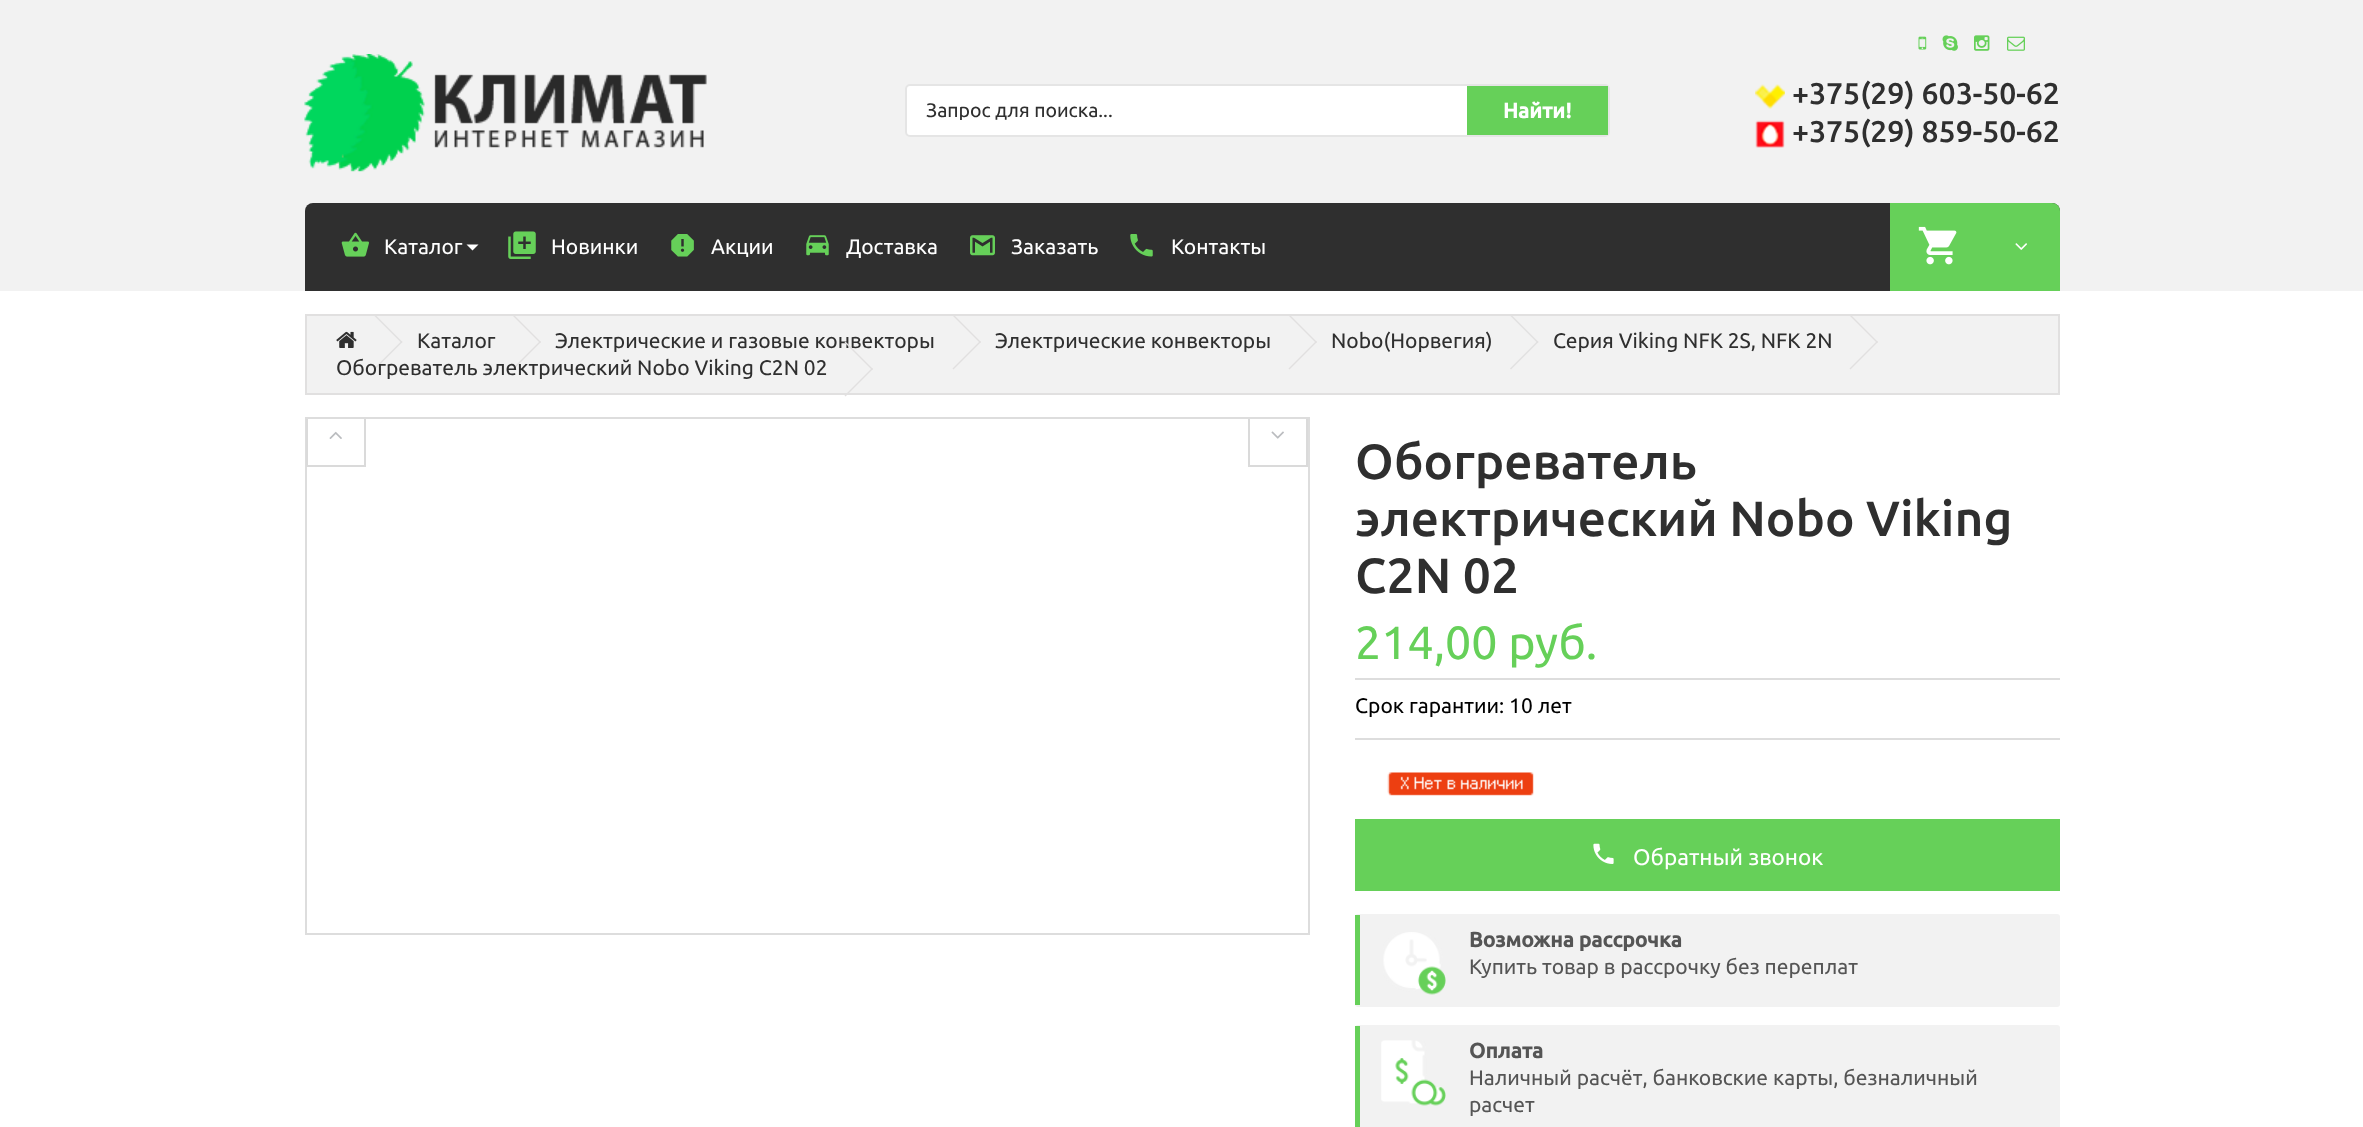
(async () => {
  const canvas = document.querySelector("canvas");
  canvas.width = 2363;
  canvas.height = 1127;
  const ctx = canvas.getContext("2d");
  ctx.miterLimit = 4;
  ctx.fontKerning = "normal";
  async function loadImage(src) {
    const img = new Image();
    img.src = src;
    await img.decode();
    return img;
  }
  let path;

  ctx.fillStyle = "#ffffff";
  ctx.fillRect(0, 0, 2363, 1127);
  ctx.fillStyle = "#f2f2f2";
  ctx.fillRect(0, 0, 2363, 291);
  ctx.drawImage(await loadImage("img/1.png"), 1918, 36, 9, 14);
  ctx.drawImage(await loadImage("img/2.png"), 1942, 35, 16, 16);
  ctx.drawImage(await loadImage("img/3.png"), 1974, 35, 16, 16);
  ctx.drawImage(await loadImage("img/4.png"), 2007, 36, 18, 15);
  ctx.drawImage(await loadImage("img/5.png"), 304, 54, 403, 118);
  ctx.fillStyle = "#ffffff";
  ctx.beginPath();
  ctx.roundRect(906, 85, 703, 51, 4);
  ctx.fill();
  ctx.strokeStyle = "#e5e5e5";
  ctx.lineWidth = 2;
  ctx.stroke();
  ctx.fillStyle = "#66d059";
  ctx.fillRect(1467, 86, 141, 49);
  ctx.drawImage(await loadImage("img/6.png"), 1755, 84, 30, 25);
  ctx.drawImage(await loadImage("img/7.png"), 1755, 120, 30, 28);
  ctx.fillStyle = "#2f2f2f";
  ctx.beginPath();
  ctx.roundRect(305, 203, 1755, 88, [8, 8, 0, 0]);
  ctx.fill();
  ctx.drawImage(await loadImage("img/8.png"), 341, 232, 28, 25);
  ctx.fillStyle = "#ffffff";
  path = new Path2D("M466.5 244.5H478.5L472.5 250.5Z");
  ctx.fill(path);
  ctx.drawImage(await loadImage("img/9.png"), 508, 231, 28, 28);
  ctx.drawImage(await loadImage("img/10.png"), 671, 234, 23, 23);
  ctx.drawImage(await loadImage("img/11.png"), 806, 235, 23, 21);
  ctx.drawImage(await loadImage("img/12.png"), 970, 235, 25, 21);
  ctx.drawImage(await loadImage("img/13.png"), 1130, 234, 23, 23);
  ctx.fillStyle = "#66d059";
  ctx.beginPath();
  ctx.roundRect(1890, 203, 170, 88, [0, 8, 0, 0]);
  ctx.fill();
  ctx.drawImage(await loadImage("img/14.png"), 1918, 226, 39, 39);
  ctx.drawImage(await loadImage("img/15.png"), 2015, 243, 12, 7);
  ctx.fillStyle = "#f2f2f2";
  ctx.beginPath();
  ctx.rect(306, 315, 1753, 79);
  ctx.fill();
  ctx.strokeStyle = "#e1e0e0";
  ctx.stroke();
  ctx.drawImage(await loadImage("img/16.png"), 336, 331, 21, 17);
  ctx.fillStyle = "#e1e0e0";
  path = new Path2D("M374 315.5L375 314.5L402.5 342L401.5 343Z");
  ctx.fill(path);
  path = new Path2D("M374 368.5L401.5 341L402.5 342L375 369.5Z");
  ctx.fill(path);
  path = new Path2D("M512.5 315.5L513.5 314.5L541 342L540 343Z");
  ctx.fill(path);
  path = new Path2D("M512.5 368.5L540 341L541 342L513.5 369.5Z");
  ctx.fill(path);
  path = new Path2D("M952.5 315.5L953.5 314.5L981 342L980 343Z");
  ctx.fill(path);
  path = new Path2D("M952.5 368.5L980 341L981 342L953.5 369.5Z");
  ctx.fill(path);
  path = new Path2D("M1288.5 315.5L1289.5 314.5L1317 342L1316 343Z");
  ctx.fill(path);
  path = new Path2D("M1288.5 368.5L1316 341L1317 342L1289.5 369.5Z");
  ctx.fill(path);
  path = new Path2D("M1510 315.5L1511 314.5L1538.5 342L1537.5 343Z");
  ctx.fill(path);
  path = new Path2D("M1510 368.5L1537.5 341L1538.5 342L1511 369.5Z");
  ctx.fill(path);
  path = new Path2D("M1849.5 315.5L1850.5 314.5L1878 342L1877 343Z");
  ctx.fill(path);
  path = new Path2D("M1849.5 368.5L1877 341L1878 342L1850.5 369.5Z");
  ctx.fill(path);
  ctx.strokeStyle = "#dddddd";
  ctx.strokeRect(306, 418, 1003, 516);
  ctx.save();
  ctx.beginPath();
  ctx.rect(306, 419, 1002, 514);
  ctx.clip();
  ctx.strokeStyle = "#dadada";
  ctx.strokeRect(307, 405, 58, 61);
  ctx.restore();
  ctx.drawImage(await loadImage("img/17.png"), 329, 431, 13, 8);
  ctx.save();
  ctx.beginPath();
  ctx.rect(306, 419, 1002, 514);
  ctx.clip();
  ctx.strokeStyle = "#dadada";
  ctx.strokeRect(1249, 405, 58, 61);
  ctx.restore();
  ctx.drawImage(await loadImage("img/18.png"), 1271, 431, 13, 8);
  ctx.fillStyle = "#dddddd";
  ctx.fillRect(1355, 678, 705, 2);
  ctx.fillRect(1355, 738, 705, 2);
  ctx.drawImage(await loadImage("img/19.png"), 1387, 772, 147, 24);
  ctx.fillStyle = "#66d059";
  ctx.fillRect(1355, 819, 705, 72);
  ctx.drawImage(await loadImage("img/20.png"), 1593, 843, 21, 21);
  ctx.fillStyle = "#f2f2f2";
  ctx.beginPath();
  ctx.roundRect(1355, 914, 705, 93, 3);
  ctx.fill();
  ctx.fillStyle = "#66d059";
  ctx.fillRect(1355, 915, 5, 90);
  ctx.drawImage(await loadImage("img/21.png"), 1383, 932, 63, 63);
  ctx.fillStyle = "#f2f2f2";
  ctx.beginPath();
  ctx.roundRect(1355, 1025, 705, 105, 3);
  ctx.fill();
  ctx.fillStyle = "#66d059";
  ctx.fillRect(1355, 1026, 5, 101);
  ctx.drawImage(await loadImage("img/22.png"), 1381, 1040, 65, 66);
  ctx.save();
  ctx.beginPath();
  ctx.rect(926, 99, 540, 21);
  ctx.clip();
  ctx.font = "19.5px Ubuntu";
  ctx.fillStyle = "#2f2f2f";
  ctx.fillText("Запрос для поиска...", 926, 117);
  ctx.restore();
  ctx.font = "bold 21px Ubuntu";
  ctx.fillStyle = "#ffffff";
  ctx.fillText("Найти!", 1503, 118);
  ctx.font = "500 30px Ubuntu";
  ctx.fillStyle = "#2f2f2f";
  ctx.fillText("+375(29) 603-50-62", 1792, 104);
  ctx.fillText("+375(29) 859-50-62", 1792, 142);
  ctx.font = "21px Ubuntu";
  ctx.fillStyle = "#ffffff";
  for (const [text, x, y] of [
    ["Каталог", 384, 254],
    ["Новинки", 551, 254],
    ["Акции", 711, 254],
    ["Доставка", 846, 254],
    ["Заказать", 1011, 254],
    ["Контакты", 1171, 254],
  ]) {
    ctx.fillText(text, x, y);
  }
  ctx.fillStyle = "#2f2f2f";
  for (const [text, x, y] of [
    ["Каталог", 417, 348],
    ["Электрические и газовые конвекторы", 555, 348],
    ["Электрические конвекторы", 995, 348],
    ["Nobo(Норвегия)", 1331, 348],
    ["Серия Viking NFK 2S, NFK 2N", 1553, 348],
    ["Обогреватель электрический Nobo Viking C2N 02", 336, 375],
  ]) {
    ctx.fillText(text, x, y);
  }
  ctx.fillStyle = "#e1e0e0";
  path = new Path2D("M844.5 342.5L845.5 341.5L873 369L872 370Z");
  ctx.fill(path);
  path = new Path2D("M844.5 395.5L872 368L873 369L845.5 396.5Z");
  ctx.fill(path);
  ctx.font = "500 49.5px Ubuntu";
  ctx.fillStyle = "#2f2f2f";
  for (const [text, x, y] of [
    ["Обогреватель", 1355, 479],
    ["электрический Nobo Viking", 1355, 536],
    ["C2N 02", 1355, 593],
  ]) {
    ctx.fillText(text, x, y);
  }
  ctx.font = "46.5px Ubuntu";
  ctx.fillStyle = "#66d059";
  ctx.fillText("214,00 руб.", 1355, 659);
  ctx.font = "21px Ubuntu";
  ctx.fillStyle = "#000000";
  ctx.fillText("Срок гарантии: 10 лет", 1355, 713);
  ctx.font = "22.5px Ubuntu";
  ctx.fillStyle = "#ffffff";
  ctx.fillText("Обратный звонок", 1633, 865);
  ctx.font = "bold 21px Ubuntu";
  ctx.fillStyle = "#555555";
  ctx.fillText("Возможна рассрочка", 1469, 947);
  ctx.font = "21px Ubuntu";
  ctx.fillText("Купить товар в рассрочку без переплат", 1469, 974);
  ctx.font = "bold 21px Ubuntu";
  ctx.fillText("Оплата", 1469, 1058);
  ctx.font = "21px Ubuntu";
  ctx.fillText("Наличный расчёт, банковские карты, безналичный", 1469, 1085);
  ctx.fillText("расчет", 1469, 1112);
})();
